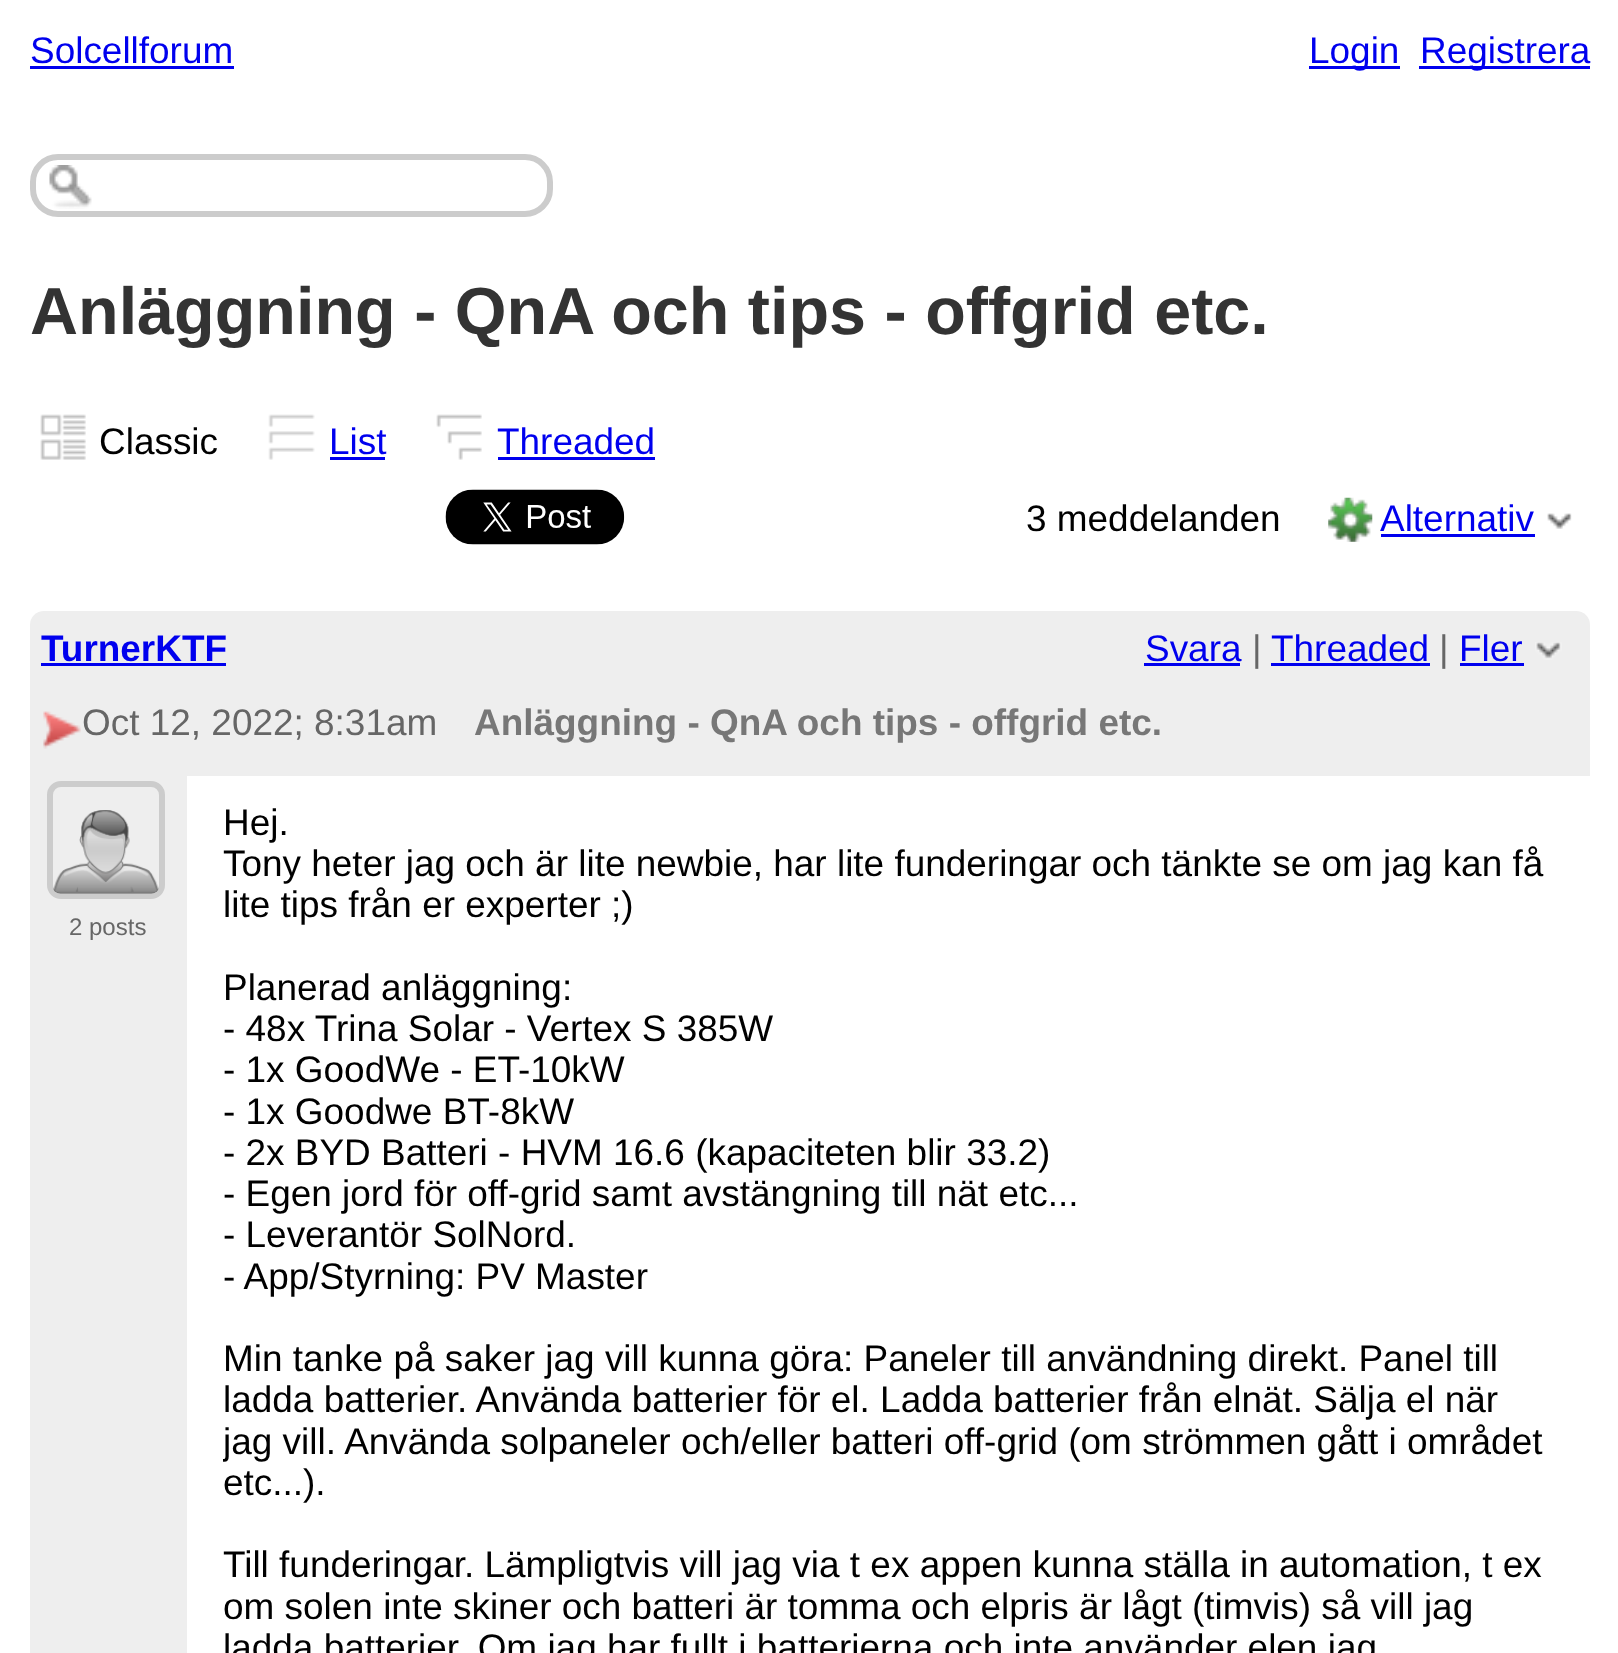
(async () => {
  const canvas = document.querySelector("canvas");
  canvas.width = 1618;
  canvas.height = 1653;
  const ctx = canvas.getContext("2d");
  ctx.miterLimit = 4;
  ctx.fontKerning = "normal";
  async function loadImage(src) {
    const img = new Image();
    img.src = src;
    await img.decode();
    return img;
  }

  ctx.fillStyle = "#ffffff";
  ctx.fillRect(0, 0, 1618, 1653);
  for (const [x, y, w, h, color] of [
    [30, 66, 204, 3, "#0000ee"],
    [1309, 66, 91, 3, "#0000ee"],
    [1419, 66, 171, 3, "#0000ee"],
  ]) {
    ctx.fillStyle = color;
    ctx.fillRect(x, y, w, h);
  }
  ctx.drawImage(await loadImage("img/1.png"), 49, 165, 43, 44);
  ctx.beginPath();
  ctx.roundRect(33, 157, 517, 57, 25);
  ctx.strokeStyle = "#cccccc";
  ctx.lineWidth = 6;
  ctx.stroke();
  ctx.drawImage(await loadImage("img/2.png"), 40, 414, 46, 46);
  ctx.drawImage(await loadImage("img/3.png"), 268, 414, 47, 46);
  ctx.fillRect(330, 457, 55, 3);
  ctx.drawImage(await loadImage("img/4.png"), 436, 414, 46, 46);
  ctx.fillRect(498, 457, 157, 3);
  ctx.drawImage(await loadImage("img/5.png"), 445, 489, 180, 56);
  ctx.drawImage(await loadImage("img/6.png"), 1328, 497, 45, 45);
  ctx.fillRect(1381, 534, 154, 3);
  ctx.drawImage(await loadImage("img/7.png"), 1547, 513, 25, 16);
  ctx.fillStyle = "#eeeeee";
  ctx.beginPath();
  ctx.roundRect(30, 611, 1560, 165, [14, 14, 0, 0]);
  ctx.fill();
  for (const [x, y, w, h, color] of [
    [41, 663, 185, 3, "#0000ee"],
    [1144, 663, 96, 3, "#0000ee"],
    [1271, 663, 159, 3, "#0000ee"],
    [1460, 663, 64, 3, "#0000ee"],
  ]) {
    ctx.fillStyle = color;
    ctx.fillRect(x, y, w, h);
  }
  ctx.drawImage(await loadImage("img/8.png"), 1535, 642, 27, 18);
  ctx.drawImage(await loadImage("img/9.png"), 43, 711, 38, 38);
  ctx.fillStyle = "#eeeeee";
  ctx.fillRect(30, 776, 157, 877);
  ctx.beginPath();
  ctx.roundRect(50, 784, 112, 112, 11);
  ctx.stroke();
  ctx.drawImage(await loadImage("img/10.png"), 53, 810, 106, 84);
  ctx.font = "36.95px Liberation Sans";
  ctx.fillStyle = "#0000ee";
  for (const [text, x, y] of [
    ["Solcellforum", 30, 63],
    ["Login", 1309, 63],
    ["Registrera", 1420, 63],
  ]) {
    ctx.fillText(text, x, y);
  }
  ctx.font = "bold 66.5px Liberation Sans";
  ctx.fillStyle = "#333333";
  ctx.fillText("Anläggning - QnA och tips - offgrid etc.", 30, 334);
  ctx.font = "36.95px Liberation Sans";
  ctx.fillStyle = "#000000";
  ctx.fillText("Classic", 99, 454);
  ctx.fillStyle = "#0000ee";
  ctx.fillText("List", 329, 454);
  ctx.fillText("Threaded", 497, 454);
  ctx.fillStyle = "#000000";
  ctx.fillText("3 meddelanden", 1026, 531);
  ctx.fillStyle = "#0000ee";
  ctx.fillText("Alternativ", 1380, 531);
  ctx.font = "bold 36.95px Liberation Sans";
  ctx.fillText("TurnerKTF", 41, 661);
  ctx.font = "36.95px Liberation Sans";
  ctx.fillText("Svara", 1145, 661);
  ctx.fillStyle = "#666666";
  ctx.fillText("|", 1252, 661);
  ctx.fillStyle = "#0000ee";
  ctx.fillText("Threaded", 1271, 661);
  ctx.fillStyle = "#666666";
  ctx.fillText("|", 1439, 661);
  ctx.fillStyle = "#0000ee";
  ctx.fillText("Fler", 1459, 661);
  ctx.fillStyle = "#666666";
  ctx.fillText("Oct 12, 2022; 8:31am", 82, 735);
  ctx.font = "bold 36.95px Liberation Sans";
  ctx.fillStyle = "#777777";
  ctx.fillText("Anläggning - QnA och tips - offgrid etc.", 474, 735);
  ctx.font = "24px Liberation Sans";
  ctx.fillStyle = "#666666";
  ctx.fillText("2 posts", 69, 935);
  ctx.font = "36.95px Liberation Sans";
  ctx.fillStyle = "#000000";
  for (const [text, x, y] of [
    ["Hej.", 223, 835],
    ["Tony heter jag och är lite newbie, har lite funderingar och tänkte se om jag kan få", 223, 876],
    ["lite tips från er experter ;)", 223, 917],
    ["Planerad anläggning:", 223, 1000],
    ["- 48x Trina Solar - Vertex S 385W", 223, 1041],
    ["- 1x GoodWe - ET-10kW", 223, 1082],
    ["- 1x Goodwe BT-8kW", 223, 1124],
    ["- 2x BYD Batteri - HVM 16.6 (kapaciteten blir 33.2)", 223, 1165],
    ["- Egen jord för off-grid samt avstängning till nät etc...", 223, 1206],
    ["- Leverantör SolNord.", 223, 1247],
    ["- App/Styrning: PV Master", 223, 1289],
    ["Min tanke på saker jag vill kunna göra: Paneler till användning direkt. Panel till", 223, 1371],
    ["ladda batterier. Använda batterier för el. Ladda batterier från elnät. Sälja el när", 223, 1412],
  ]) {
    ctx.fillText(text, x, y);
  }
  ctx.save();
  ctx.beginPath();
  ctx.rect(223, 803, 1331, 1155);
  ctx.clip();
  ctx.fillText("jag vill. Använda solpaneler och/eller batteri off-grid (om strömmen gått i området", 223, 1454);
  ctx.restore();
  for (const [text, x, y] of [
    ["etc...).", 223, 1495],
    ["Till funderingar. Lämpligtvis vill jag via t ex appen kunna ställa in automation, t ex", 223, 1577],
    ["om solen inte skiner och batteri är tomma och elpris är lågt (timvis) så vill jag", 223, 1619],
    ["ladda batterier. Om jag har fullt i batterierna och inte använder elen jag", 223, 1660],
  ]) {
    ctx.fillText(text, x, y);
  }
})();
